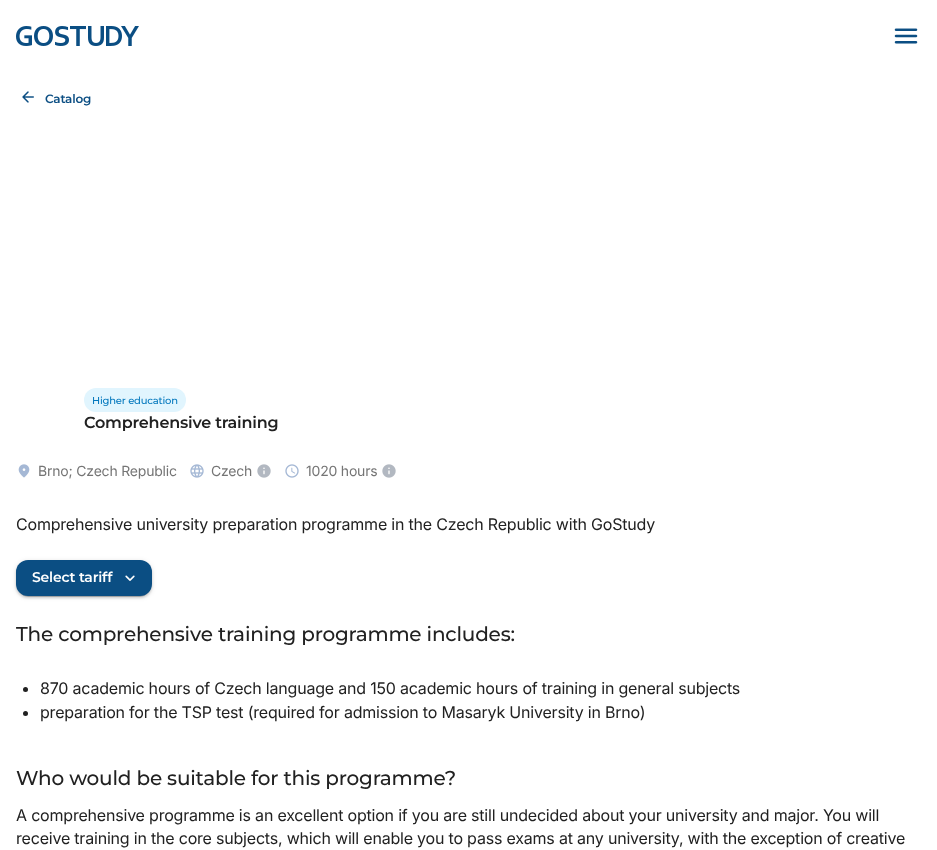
(async () => {
  const canvas = document.querySelector("canvas");
  canvas.width = 937;
  canvas.height = 850;
  const ctx = canvas.getContext("2d");
  ctx.miterLimit = 4;
  ctx.fontKerning = "normal";
  async function loadImage(src) {
    const img = new Image();
    img.src = src;
    await img.decode();
    return img;
  }

  ctx.fillStyle = "#ffffff";
  ctx.fillRect(0, 0, 937, 850);
  ctx.drawImage(await loadImage("img/1.png"), 16, 26, 123, 20);
  ctx.drawImage(await loadImage("img/2.png"), 894, 28, 24, 16);
  ctx.drawImage(await loadImage("img/3.png"), 22, 91, 12, 12);
  ctx.fillStyle = "#e1f5fe";
  ctx.beginPath();
  ctx.roundRect(84, 388, 102, 24, 12);
  ctx.fill();
  ctx.drawImage(await loadImage("img/4.png"), 18, 464, 12, 14);
  ctx.drawImage(await loadImage("img/5.png"), 190, 464, 14, 14);
  ctx.drawImage(await loadImage("img/6.png"), 257, 464, 14, 14);
  ctx.drawImage(await loadImage("img/7.png"), 285, 464, 14, 14);
  ctx.drawImage(await loadImage("img/6.png"), 382, 464, 14, 14);
  ctx.fillStyle = "rgba(0, 0, 0, 0.12)";
  ctx.filter = "blur(2.5px)";
  ctx.beginPath();
  ctx.roundRect(16, 561, 136, 36, 12);
  ctx.fill();
  ctx.filter = "none";
  ctx.fillStyle = "rgba(0, 0, 0, 0.14)";
  ctx.filter = "blur(1px)";
  ctx.beginPath();
  ctx.roundRect(16, 562, 136, 36, 12);
  ctx.fill();
  ctx.filter = "none";
  ctx.fillStyle = "rgba(0, 0, 0, 0.2)";
  ctx.filter = "blur(0.5px)";
  ctx.beginPath();
  ctx.roundRect(18, 565, 132, 32, 10);
  ctx.fill();
  ctx.filter = "none";
  ctx.fillStyle = "#0b4e83";
  ctx.beginPath();
  ctx.roundRect(16, 560, 136, 36, 12);
  ctx.fill();
  ctx.drawImage(await loadImage("img/8.png"), 125, 575, 10, 6);
  ctx.fillStyle = "#212121";
  ctx.beginPath();
  ctx.arc(25.5, 689.5, 2.5, 0, Math.PI * 2);
  ctx.fill();
  ctx.beginPath();
  ctx.arc(25.5, 713.5, 2.5, 0, Math.PI * 2);
  ctx.fill();
  ctx.letterSpacing = "-0.2px";
  ctx.font = "600 12px Montserrat";
  ctx.fillStyle = "#0b4e83";
  ctx.fillText("Catalog", 45, 103);
  ctx.font = "500 10px Montserrat";
  ctx.fillStyle = "#0277bd";
  ctx.fillText("Higher education", 92, 404);
  ctx.font = "600 16px Montserrat";
  ctx.fillStyle = "#212121";
  ctx.fillText("Comprehensive training", 84, 428);
  ctx.font = "14px Inter";
  ctx.fillStyle = "#757575";
  for (const [text, x, y] of [
    ["Brno; Czech Republic", 38, 476],
    ["Czech", 211, 476],
    ["1020 hours", 306, 476],
  ]) {
    ctx.fillText(text, x, y);
  }
  ctx.font = "16px Inter";
  ctx.fillStyle = "#212121";
  ctx.fillText("Comprehensive university preparation programme in the Czech Republic with GoStudy", 16, 530);
  ctx.font = "600 14px Montserrat";
  ctx.fillStyle = "#ffffff";
  ctx.fillText("Select tariff", 32, 582);
  ctx.font = "500 20px Montserrat";
  ctx.fillStyle = "#212121";
  ctx.fillText("The comprehensive training programme includes:", 16, 641);
  ctx.font = "16px Inter";
  ctx.fillText("870 academic hours of Czech language and 150 academic hours of training in general subjects", 40, 694);
  ctx.fillText("preparation for the TSP test (required for admission to Masaryk University in Brno)", 40, 718);
  ctx.font = "500 20px Montserrat";
  ctx.fillText("Who would be suitable for this programme?", 16, 785);
  ctx.font = "16px Inter";
  ctx.fillText("A comprehensive programme is an excellent option if you are still undecided about your university and major. You will", 16, 821);
  ctx.fillText("receive training in the core subjects, which will enable you to pass exams at any university, with the exception of creative", 16, 844);
})();
